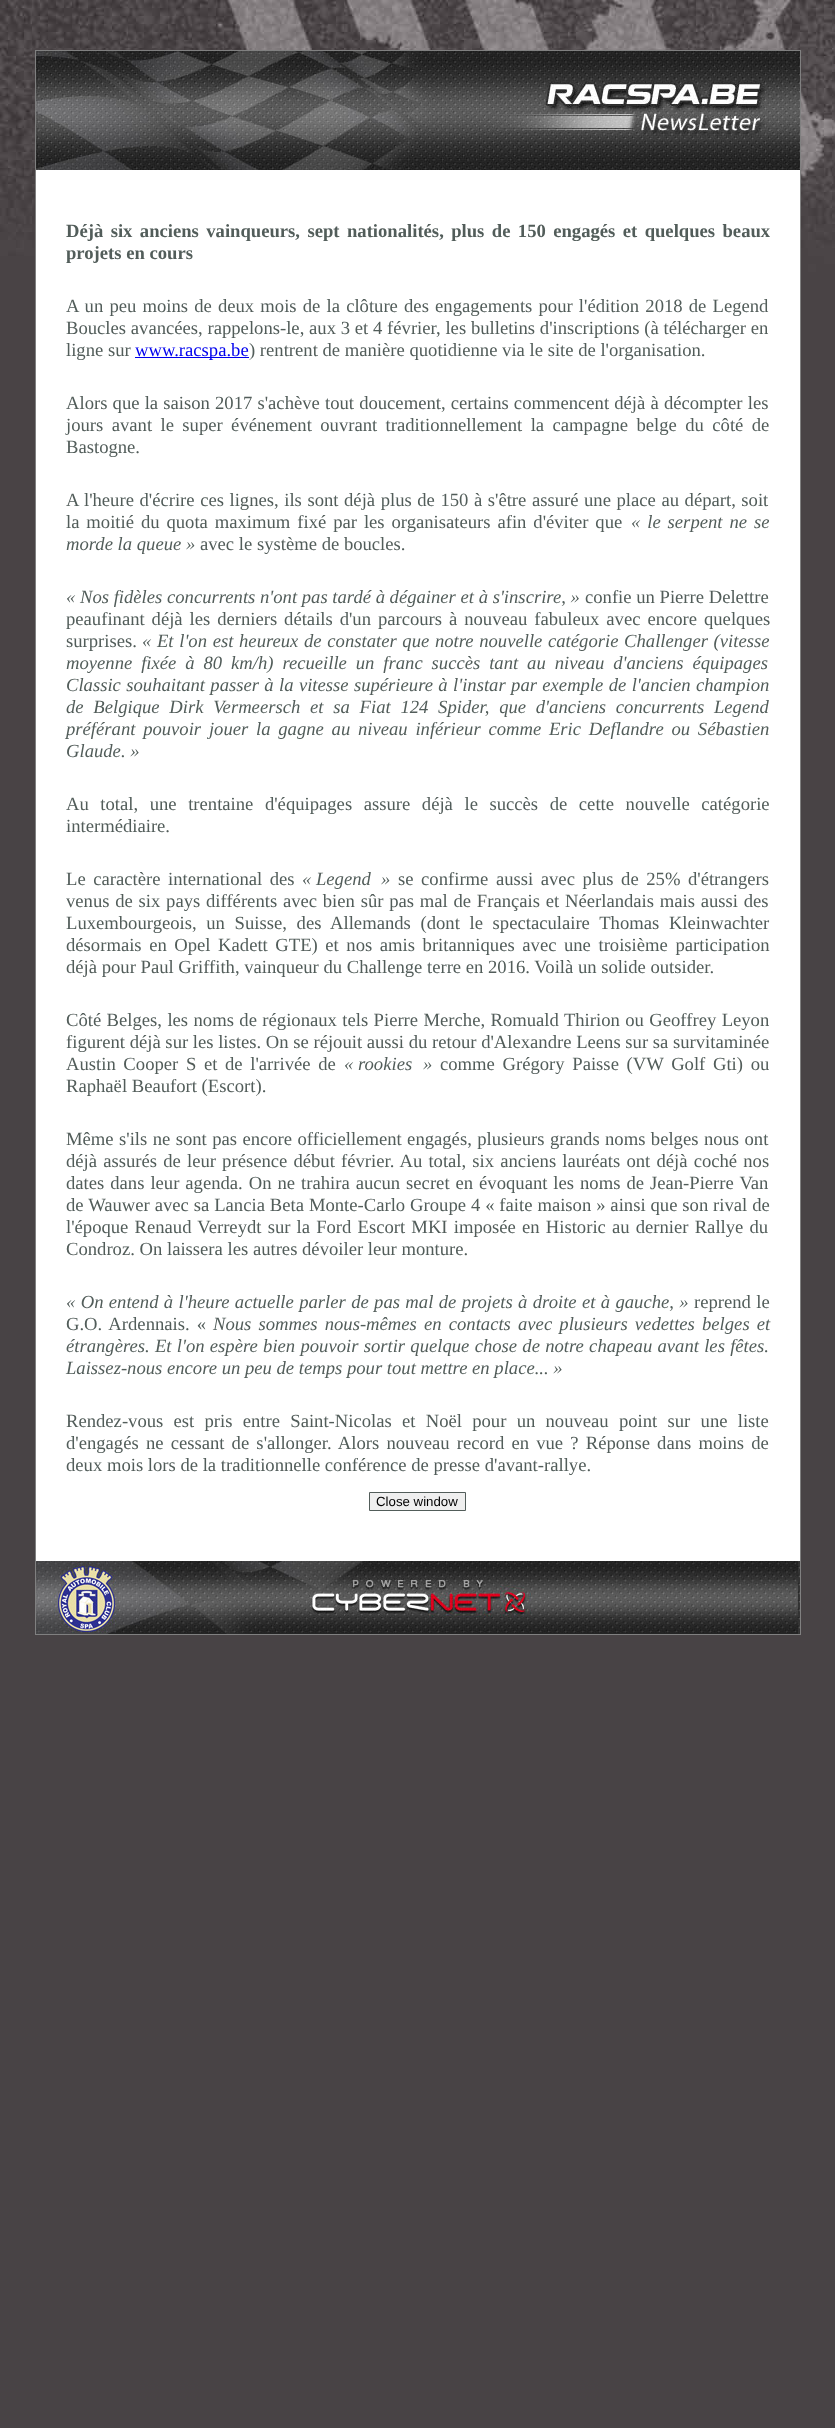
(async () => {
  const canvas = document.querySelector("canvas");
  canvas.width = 835;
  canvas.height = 2428;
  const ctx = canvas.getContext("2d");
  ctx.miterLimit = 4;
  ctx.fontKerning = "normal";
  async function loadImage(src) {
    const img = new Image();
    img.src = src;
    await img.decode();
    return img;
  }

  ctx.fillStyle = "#484345";
  ctx.fillRect(0, 0, 835, 2428);
  ctx.drawImage(await loadImage("img/1.png"), 0, 0, 835, 800);
  for (const [x, y, w, h, color] of [
    [36, 170, 764, 1391, "#ffffff"],
    [35, 50, 766, 1, "#808080"],
    [800, 50, 1, 1585, "#808080"],
    [35, 1634, 766, 1, "#808080"],
    [35, 50, 1, 1585, "#808080"],
  ]) {
    ctx.fillStyle = color;
    ctx.fillRect(x, y, w, h);
  }
  ctx.drawImage(await loadImage("img/2.png"), 36, 51, 764, 119);
  ctx.fillStyle = "#0000ee";
  ctx.fillRect(135, 357, 114, 1);
  ctx.fillStyle = "#efefef";
  ctx.beginPath();
  ctx.rect(369.5, 1492.5, 96, 18);
  ctx.fill();
  ctx.strokeStyle = "#525d5a";
  ctx.stroke();
  ctx.drawImage(await loadImage("img/3.png"), 36, 1561, 764, 73);
  ctx.wordSpacing = "2.75px";
  ctx.font = "bold 18.65px Liberation Serif";
  ctx.fillStyle = "#525d5a";
  ctx.fillText("Déjà six anciens vainqueurs, sept nationalités, plus de 150 engagés et quelques beaux", 66, 237);
  ctx.wordSpacing = "0px";
  ctx.fillText("projets en cours", 66, 259);
  ctx.wordSpacing = "1.5px";
  ctx.font = "18.65px Liberation Serif";
  ctx.fillText("A un peu moins de deux mois de la clôture des engagements pour l'édition 2018 de Legend", 66, 312);
  ctx.wordSpacing = "0.1px";
  ctx.fillText("Boucles avancées, rappelons-le, aux 3 et 4 février, les bulletins d'inscriptions (à télécharger en", 66, 334);
  ctx.wordSpacing = "0px";
  ctx.fillText("ligne sur", 66, 356);
  ctx.fillStyle = "#0000ee";
  ctx.fillText("www.racspa.be", 135, 356);
  ctx.fillStyle = "#525d5a";
  ctx.fillText(") rentrent de manière quotidienne via le site de l'organisation.", 249, 356);
  ctx.wordSpacing = "0.5px";
  ctx.fillText("Alors que la saison 2017 s'achève tout doucement, certains commencent déjà à décompter les", 66, 409);
  ctx.wordSpacing = "3.75px";
  ctx.fillText("jours avant le super événement ouvrant traditionnellement la campagne belge du côté de", 66, 431);
  ctx.wordSpacing = "0px";
  ctx.fillText("Bastogne.", 66, 453);
  ctx.wordSpacing = "0.9px";
  ctx.fillText("A l'heure d'écrire ces lignes, ils sont déjà plus de 150 à s'être assuré une place au départ, soit", 66, 506);
  ctx.wordSpacing = "2.25px";
  ctx.fillText("la moitié du quota maximum fixé par les organisateurs afin d'éviter que", 66, 528);
  ctx.font = "italic 18.65px Liberation Serif";
  ctx.fillText("« le serpent ne se", 631, 528);
  ctx.wordSpacing = "0px";
  ctx.fillText("morde la queue »", 66, 550);
  ctx.font = "18.65px Liberation Serif";
  ctx.fillText("avec le système de boucles.", 200, 550);
  ctx.font = "italic 18.65px Liberation Serif";
  ctx.fillText("« Nos fidèles concurrents n'ont pas tardé à dégainer et à s'inscrire, »", 66, 603);
  ctx.font = "18.65px Liberation Serif";
  ctx.fillText("confie un Pierre Delettre", 585, 603);
  ctx.wordSpacing = "2.25px";
  ctx.fillText("peaufinant déjà les derniers détails d'un parcours à nouveau fabuleux avec encore quelques", 66, 625);
  ctx.wordSpacing = "0px";
  ctx.fillText("surprises.", 66, 647);
  ctx.wordSpacing = "1px";
  ctx.font = "italic 18.65px Liberation Serif";
  ctx.fillText("« Et l'on est heureux de constater que notre nouvelle catégorie Challenger (vitesse", 142, 647);
  ctx.wordSpacing = "4.25px";
  ctx.fillText("moyenne fixée à 80 km/h) recueille un franc succès tant au niveau d'anciens équipages", 66, 669);
  ctx.wordSpacing = "0.7px";
  ctx.fillText("Classic souhaitant passer à la vitesse supérieure à l'instar par exemple de l'ancien champion", 66, 691);
  ctx.wordSpacing = "5.1px";
  ctx.fillText("de Belgique Dirk Vermeersch et sa Fiat 124 Spider, que d'anciens concurrents Legend", 66, 713);
  ctx.wordSpacing = "3.1px";
  ctx.fillText("préférant pouvoir jouer la gagne au niveau inférieur comme Eric Deflandre ou Sébastien", 66, 735);
  ctx.wordSpacing = "0px";
  ctx.fillText("Glaude. »", 66, 757);
  ctx.wordSpacing = "6.9px";
  ctx.font = "18.65px Liberation Serif";
  ctx.fillText("Au total, une trentaine d'équipages assure déjà le succès de cette nouvelle catégorie", 66, 810);
  ctx.wordSpacing = "0px";
  ctx.fillText("intermédiaire.", 66, 832);
  ctx.wordSpacing = "2.9px";
  ctx.fillText("Le caractère international des", 66, 885);
  ctx.wordSpacing = "0px";
  ctx.font = "italic 18.65px Liberation Serif";
  ctx.fillText("« Legend", 302, 885);
  ctx.fillText("»", 381, 885);
  ctx.wordSpacing = "2.9px";
  ctx.font = "18.65px Liberation Serif";
  ctx.fillText("se confirme aussi avec plus de 25% d'étrangers", 398, 885);
  ctx.wordSpacing = "1.1px";
  ctx.fillText("venus de six pays différents avec bien sûr pas mal de Français et Néerlandais mais aussi des", 66, 907);
  ctx.wordSpacing = "5px";
  ctx.fillText("Luxembourgeois, un Suisse, des Allemands (dont le spectaculaire Thomas Kleinwachter", 66, 929);
  ctx.wordSpacing = "2.9px";
  ctx.fillText("désormais en Opel Kadett GTE) et nos amis britanniques avec une troisième participation", 66, 951);
  ctx.wordSpacing = "0px";
  ctx.fillText("déjà pour Paul Griffith, vainqueur du Challenge terre en 2016. Voilà un solide outsider.", 66, 973);
  ctx.wordSpacing = "0.75px";
  ctx.fillText("Côté Belges, les noms de régionaux tels Pierre Merche, Romuald Thirion ou Geoffrey Leyon", 66, 1026);
  ctx.wordSpacing = "0px";
  ctx.fillText("figurent déjà sur les listes. On se réjouit aussi du retour d'Alexandre Leens sur sa survitaminée", 66, 1048);
  ctx.wordSpacing = "3px";
  ctx.fillText("Austin Cooper S et de l'arrivée de", 66, 1070);
  ctx.wordSpacing = "0px";
  ctx.font = "italic 18.65px Liberation Serif";
  ctx.fillText("« rookies", 344, 1070);
  ctx.fillText("»", 423, 1070);
  ctx.wordSpacing = "3px";
  ctx.font = "18.65px Liberation Serif";
  ctx.fillText("comme Grégory Paisse (VW Golf Gti) ou", 440, 1070);
  ctx.wordSpacing = "0px";
  ctx.fillText("Raphaël Beaufort (Escort).", 66, 1092);
  ctx.wordSpacing = "0.75px";
  ctx.fillText("Même s'ils ne sont pas encore officiellement engagés, plusieurs grands noms belges nous ont", 66, 1145);
  ctx.wordSpacing = "1.5px";
  ctx.fillText("déjà assurés de leur présence début février. Au total, six anciens lauréats ont déjà coché nos", 66, 1167);
  ctx.wordSpacing = "1.3px";
  ctx.fillText("dates dans leur agenda. On ne trahira aucun secret en évoquant les noms de Jean-Pierre Van", 66, 1189);
  ctx.wordSpacing = "0.25px";
  ctx.fillText("de Wauwer avec sa Lancia Beta Monte-Carlo Groupe 4 « faite maison » ainsi que son rival de", 66, 1211);
  ctx.wordSpacing = "1.5px";
  ctx.fillText("l'époque Renaud Verreydt sur la Ford Escort MKI imposée en Historic au dernier Rallye du", 66, 1233);
  ctx.wordSpacing = "0px";
  ctx.fillText("Condroz. On laissera les autres dévoiler leur monture.", 66, 1255);
  ctx.wordSpacing = "0.7px";
  ctx.font = "italic 18.65px Liberation Serif";
  ctx.fillText("« On entend à l'heure actuelle parler de pas mal de projets à droite et à gauche, »", 66, 1308);
  ctx.font = "18.65px Liberation Serif";
  ctx.fillText("reprend le", 694, 1308);
  ctx.wordSpacing = "2.5px";
  ctx.fillText("G.O. Ardennais. «", 66, 1330);
  ctx.font = "italic 18.65px Liberation Serif";
  ctx.fillText("Nous sommes nous-mêmes en contacts avec plusieurs vedettes belges et", 213, 1330);
  ctx.wordSpacing = "0.6px";
  ctx.fillText("étrangères. Et l'on espère bien pouvoir sortir quelque chose de notre chapeau avant les fêtes.", 66, 1352);
  ctx.wordSpacing = "0px";
  ctx.fillText("Laissez-nous encore un peu de temps pour tout mettre en place... »", 66, 1374);
  ctx.wordSpacing = "5.6px";
  ctx.font = "18.65px Liberation Serif";
  ctx.fillText("Rendez-vous est pris entre Saint-Nicolas et Noël pour un nouveau point sur une liste", 66, 1427);
  ctx.wordSpacing = "2.5px";
  ctx.fillText("d'engagés ne cessant de s'allonger. Alors nouveau record en vue ? Réponse dans moins de", 66, 1449);
  ctx.wordSpacing = "0px";
  ctx.fillText("deux mois lors de la traditionnelle conférence de presse d'avant-rallye.", 66, 1471);
  ctx.font = "13.25px Liberation Sans";
  ctx.fillStyle = "#000000";
  ctx.fillText("Close window", 376, 1506);
})();
